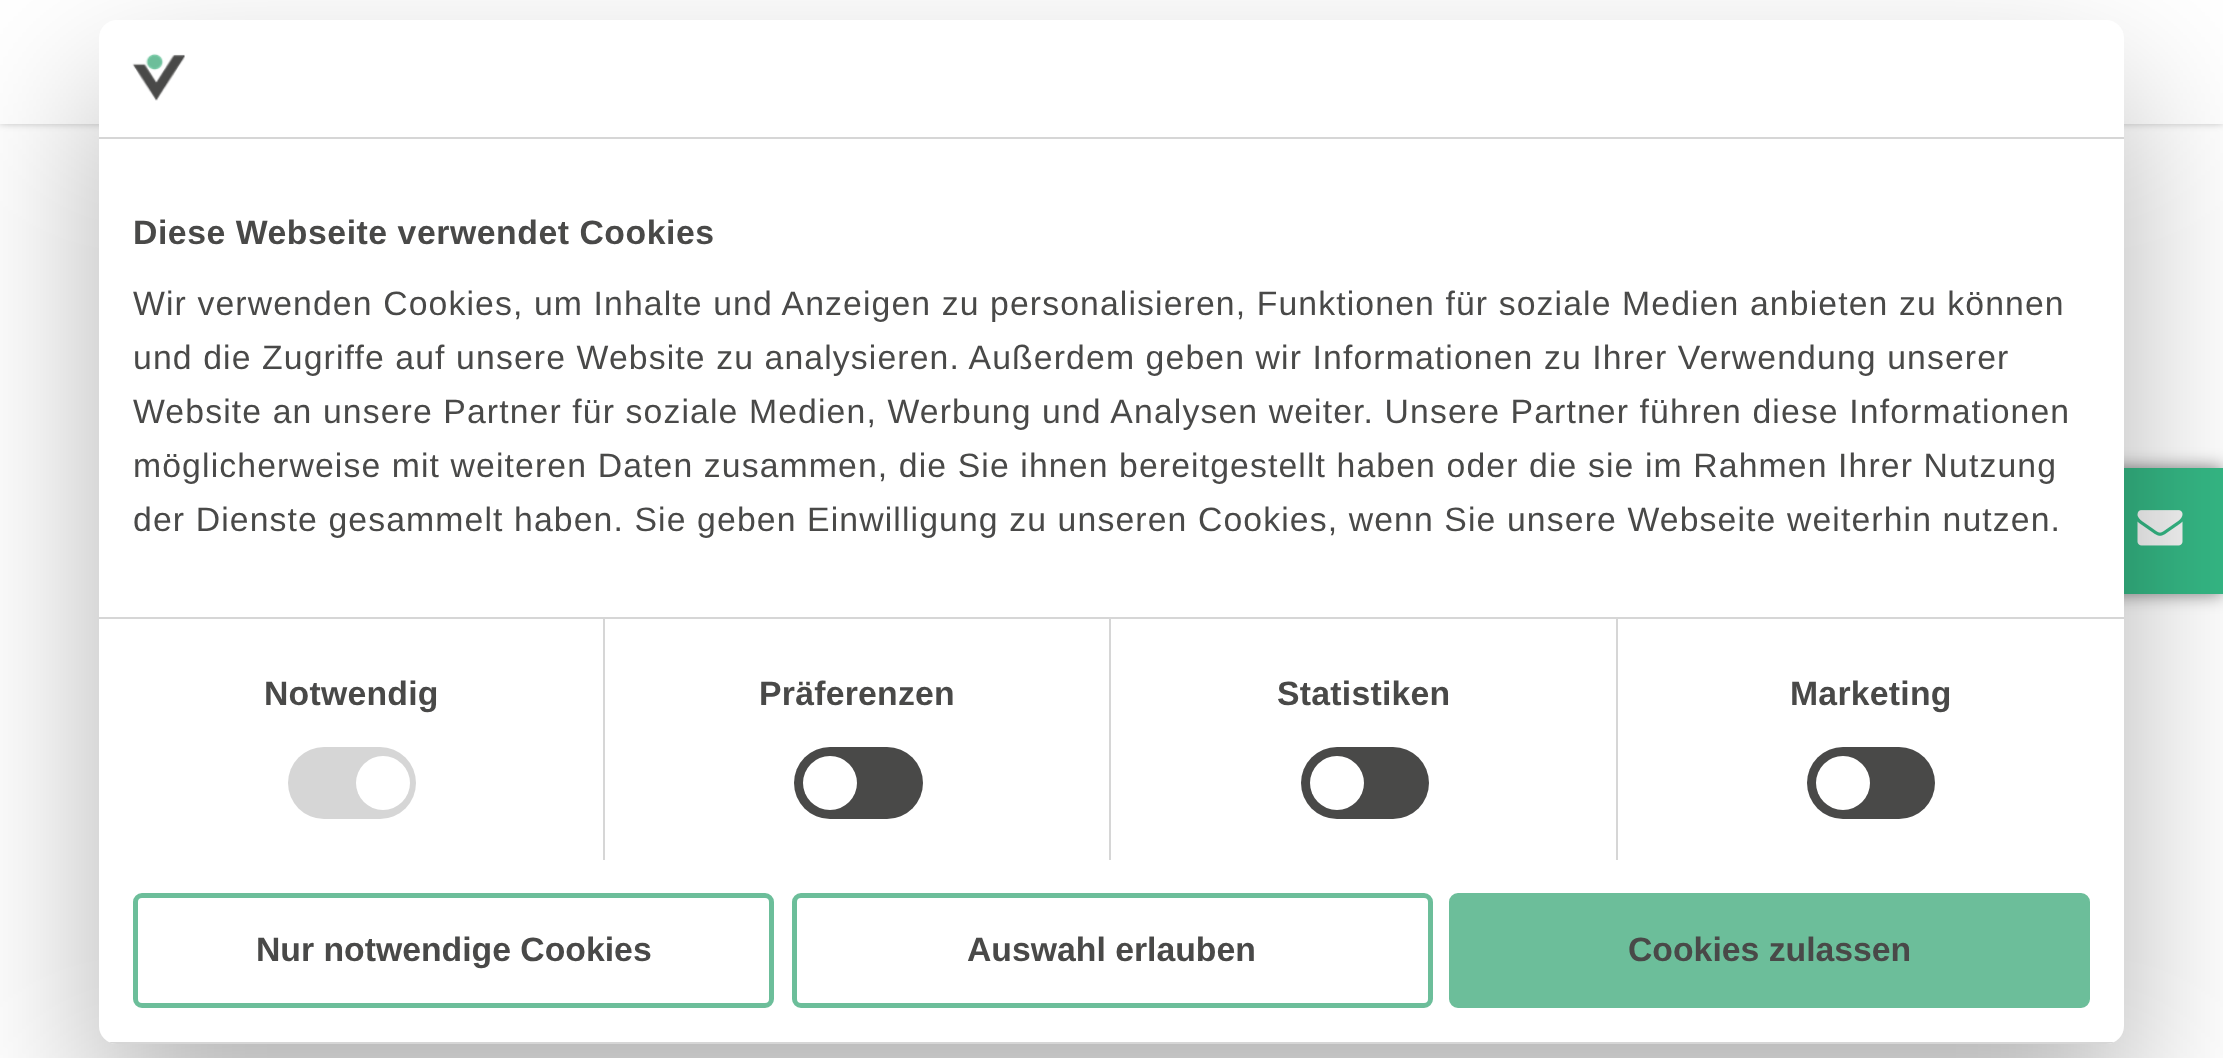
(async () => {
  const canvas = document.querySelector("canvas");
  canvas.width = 2223;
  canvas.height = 1058;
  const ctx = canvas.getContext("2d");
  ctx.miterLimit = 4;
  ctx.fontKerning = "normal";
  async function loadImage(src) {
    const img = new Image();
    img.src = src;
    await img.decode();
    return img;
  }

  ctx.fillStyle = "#ffffff";
  ctx.fillRect(0, 0, 2223, 1058);
  ctx.fillStyle = "rgba(0, 0, 0, 0.22)";
  ctx.filter = "blur(3.5px)";
  ctx.beginPath();
  ctx.rect(0, 0, 2223, 124);
  ctx.fill();
  ctx.filter = "none";
  ctx.fillStyle = "#ffffff";
  ctx.fillRect(0, 0, 2223, 124);
  ctx.fillStyle = "rgba(0, 0, 0, 0.5)";
  ctx.filter = "blur(9px)";
  ctx.beginPath();
  ctx.rect(2097, 468, 126, 126);
  ctx.fill();
  ctx.filter = "none";
  ctx.fillStyle = "#35b885";
  ctx.fillRect(2124, 468, 99, 126);
  ctx.drawImage(await loadImage("img/2.png"), 2137, 510, 46, 36);
  ctx.fillStyle = "rgba(0, 0, 0, 0.3)";
  ctx.filter = "blur(76.5px)";
  ctx.beginPath();
  ctx.roundRect(99, 92, 2025, 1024, 18);
  ctx.fill();
  ctx.filter = "none";
  ctx.fillStyle = "#ffffff";
  ctx.beginPath();
  ctx.roundRect(99, 20, 2025, 1024, 18);
  ctx.fill();
  ctx.fillStyle = "#d6d6d6";
  ctx.fillRect(99, 137, 2025, 2);
  ctx.drawImage(await loadImage("img/1.png"), 132, 53, 53, 48);
  ctx.fillRect(99, 617, 2025, 2);
  ctx.fillRect(603, 619, 2, 241);
  ctx.beginPath();
  ctx.roundRect(288, 747, 128, 72, 36);
  ctx.fill();
  ctx.fillStyle = "#ffffff";
  ctx.beginPath();
  ctx.arc(383, 783, 27, 0, Math.PI * 2);
  ctx.fill();
  ctx.fillStyle = "#d6d6d6";
  ctx.fillRect(1109, 619, 2, 241);
  ctx.fillStyle = "#494948";
  ctx.beginPath();
  ctx.roundRect(794, 747, 129, 72, 36);
  ctx.fill();
  ctx.fillStyle = "#ffffff";
  ctx.beginPath();
  ctx.arc(830, 783, 27, 0, Math.PI * 2);
  ctx.fill();
  ctx.fillStyle = "#d6d6d6";
  ctx.fillRect(1616, 619, 2, 241);
  ctx.fillStyle = "#494948";
  ctx.beginPath();
  ctx.roundRect(1301, 747, 128, 72, 36);
  ctx.fill();
  ctx.fillStyle = "#ffffff";
  ctx.beginPath();
  ctx.arc(1337, 783, 27, 0, Math.PI * 2);
  ctx.fill();
  ctx.fillStyle = "#494948";
  ctx.beginPath();
  ctx.roundRect(1807, 747, 128, 72, 36);
  ctx.fill();
  ctx.fillStyle = "#ffffff";
  ctx.beginPath();
  ctx.arc(1843, 783, 27, 0, Math.PI * 2);
  ctx.fill();
  ctx.save();
  ctx.beginPath();
  ctx.roundRect(99, 20, 2025, 1024, 18);
  ctx.clip();
  ctx.fillStyle = "#d6d6d6";
  ctx.fillRect(109, 1042, 2005, 2);
  ctx.restore();
  ctx.beginPath();
  ctx.roundRect(135.5, 895.5, 636, 110, 6.5);
  ctx.strokeStyle = "#6cbe9a";
  ctx.lineWidth = 5;
  ctx.stroke();
  ctx.beginPath();
  ctx.roundRect(794.5, 895.5, 636, 110, 6.5);
  ctx.stroke();
  ctx.fillStyle = "#6cbe9a";
  ctx.beginPath();
  ctx.roundRect(1451.5, 895.5, 636, 110, 6.5);
  ctx.fill();
  ctx.stroke();
  ctx.letterSpacing = "0.55px";
  ctx.font = "bold 33.75px Liberation Sans";
  ctx.fillStyle = "#494948";
  ctx.fillText("Diese Webseite verwendet Cookies", 133, 244);
  ctx.letterSpacing = "1.12px";
  ctx.font = "33.75px Liberation Sans";
  for (const [text, x, y] of [
    ["Wir verwenden Cookies, um Inhalte und Anzeigen zu personalisieren, Funktionen für soziale Medien anbieten zu können", 133, 315],
    ["und die Zugriffe auf unsere Website zu analysieren. Außerdem geben wir Informationen zu Ihrer Verwendung unserer", 133, 369],
    ["Website an unsere Partner für soziale Medien, Werbung und Analysen weiter. Unsere Partner führen diese Informationen", 133, 423],
    ["möglicherweise mit weiteren Daten zusammen, die Sie ihnen bereitgestellt haben oder die sie im Rahmen Ihrer Nutzung", 133, 477],
    ["der Dienste gesammelt haben. Sie geben Einwilligung zu unseren Cookies, wenn Sie unsere Webseite weiterhin nutzen.", 133, 531],
  ]) {
    ctx.fillText(text, x, y);
  }
  ctx.letterSpacing = "0.25px";
  ctx.font = "bold 33.75px Liberation Sans";
  for (const [text, x, y] of [
    ["Notwendig", 264, 705],
    ["Präferenzen", 759, 705],
    ["Statistiken", 1277, 705],
    ["Marketing", 1790, 705],
  ]) {
    ctx.fillText(text, x, y);
  }
  ctx.letterSpacing = "0px";
  for (const [text, x, y] of [
    ["Nur notwendige Cookies", 256, 961],
    ["Auswahl erlauben", 967, 961],
    ["Cookies zulassen", 1628, 961],
  ]) {
    ctx.fillText(text, x, y);
  }
})();
